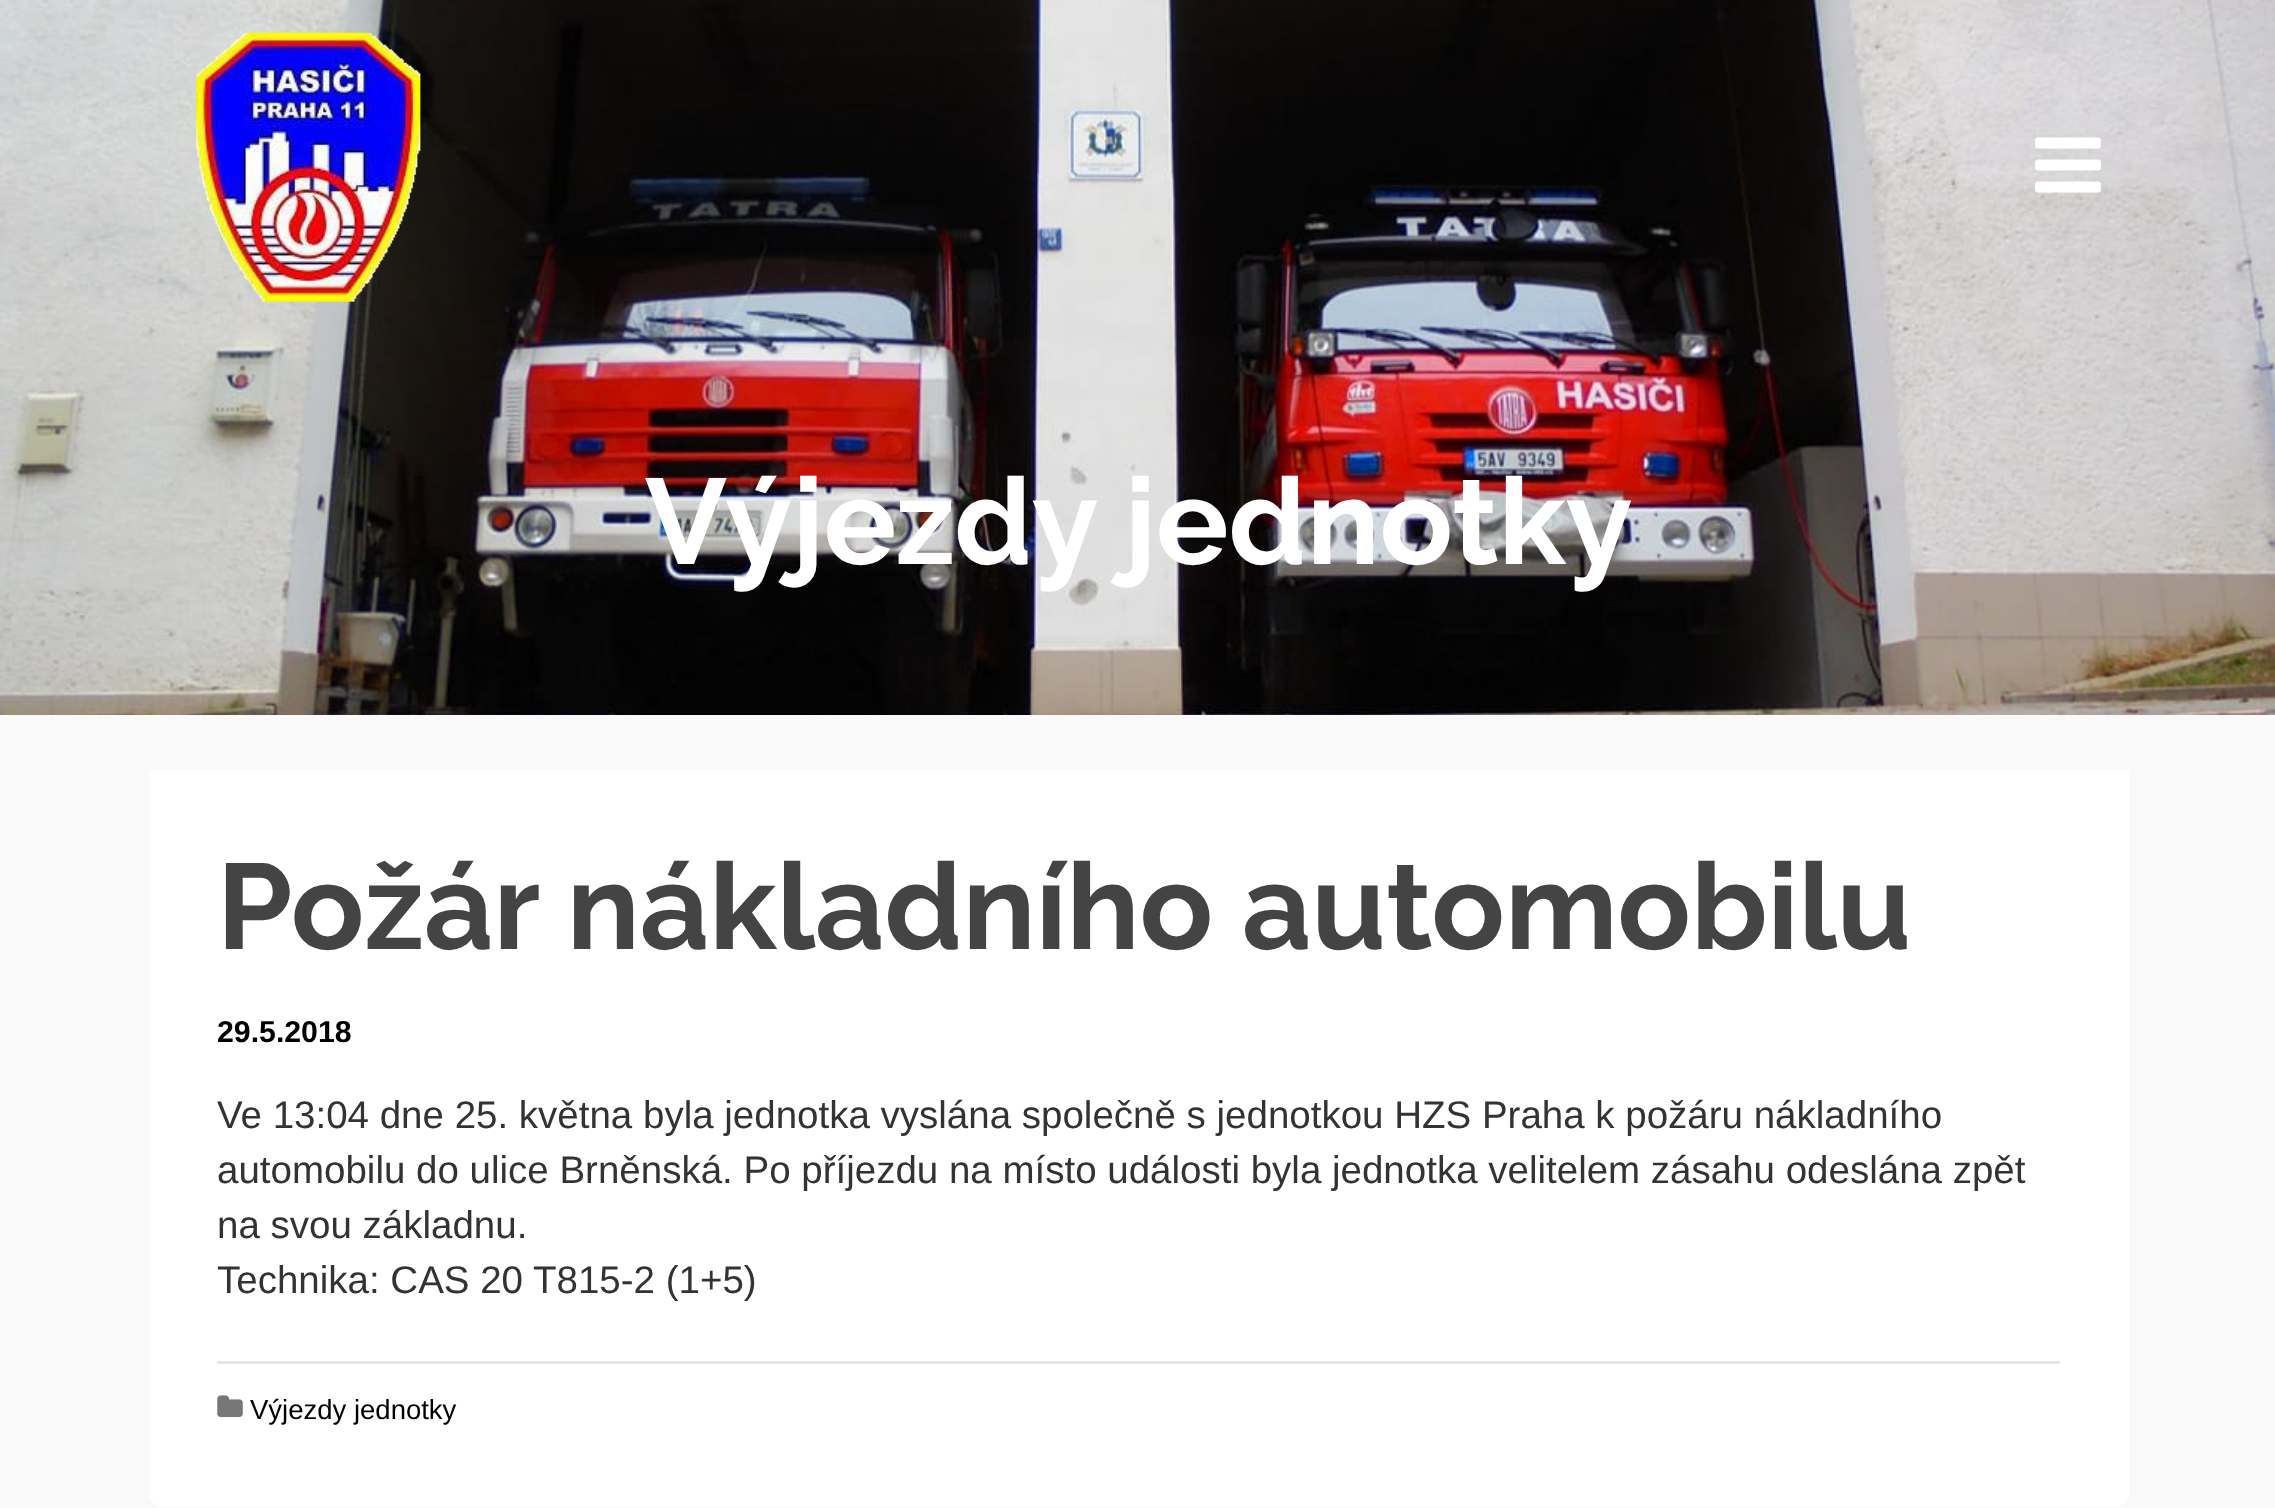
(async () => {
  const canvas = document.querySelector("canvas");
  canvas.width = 2275;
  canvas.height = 1508;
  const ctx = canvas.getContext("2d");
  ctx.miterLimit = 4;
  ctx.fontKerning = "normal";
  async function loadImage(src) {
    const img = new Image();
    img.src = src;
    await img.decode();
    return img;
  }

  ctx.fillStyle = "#f9f9f9";
  ctx.fillRect(0, 0, 2275, 1508);
  ctx.drawImage(await loadImage("img/3.png"), 0, 0, 2275, 715);
  ctx.drawImage(await loadImage("img/1.png"), 196, 32, 225, 270);
  ctx.drawImage(await loadImage("img/2.png"), 2035, 137, 66, 56);
  ctx.fillStyle = "#ffffff";
  ctx.beginPath();
  ctx.roundRect(149, 770, 1980, 737, [0, 0, 14, 14]);
  ctx.fill();
  ctx.fillStyle = "#e6e6e6";
  ctx.fillRect(217, 1361, 1843, 3);
  ctx.drawImage(await loadImage("img/4.png"), 217, 1395, 26, 23);
  ctx.font = "bold 121px Raleway";
  ctx.fillStyle = "#ffffff";
  ctx.fillText("Výjezdy jednotky", 645, 564);
  ctx.fillStyle = "#444444";
  ctx.fillText("Požár nákladního automobilu", 217, 949);
  ctx.font = "bold 30.25px Liberation Sans";
  ctx.fillStyle = "#000000";
  ctx.fillText("29.5.2018", 217, 1042);
  ctx.font = "38.5px Liberation Sans";
  ctx.fillStyle = "#333333";
  for (const [text, x, y] of [
    ["Ve 13:04 dne 25. května byla jednotka vyslána společně s jednotkou HZS Praha k požáru nákladního", 217, 1128],
    ["automobilu do ulice Brněnská. Po příjezdu na místo události byla jednotka velitelem zásahu odeslána zpět", 217, 1183],
    ["na svou základnu.", 217, 1238],
    ["Technika: CAS 20 T815-2 (1+5)", 217, 1293],
  ]) {
    ctx.fillText(text, x, y);
  }
  ctx.font = "27.5px Liberation Sans";
  ctx.fillStyle = "#000000";
  ctx.fillText("Výjezdy jednotky", 250, 1419);
})();
